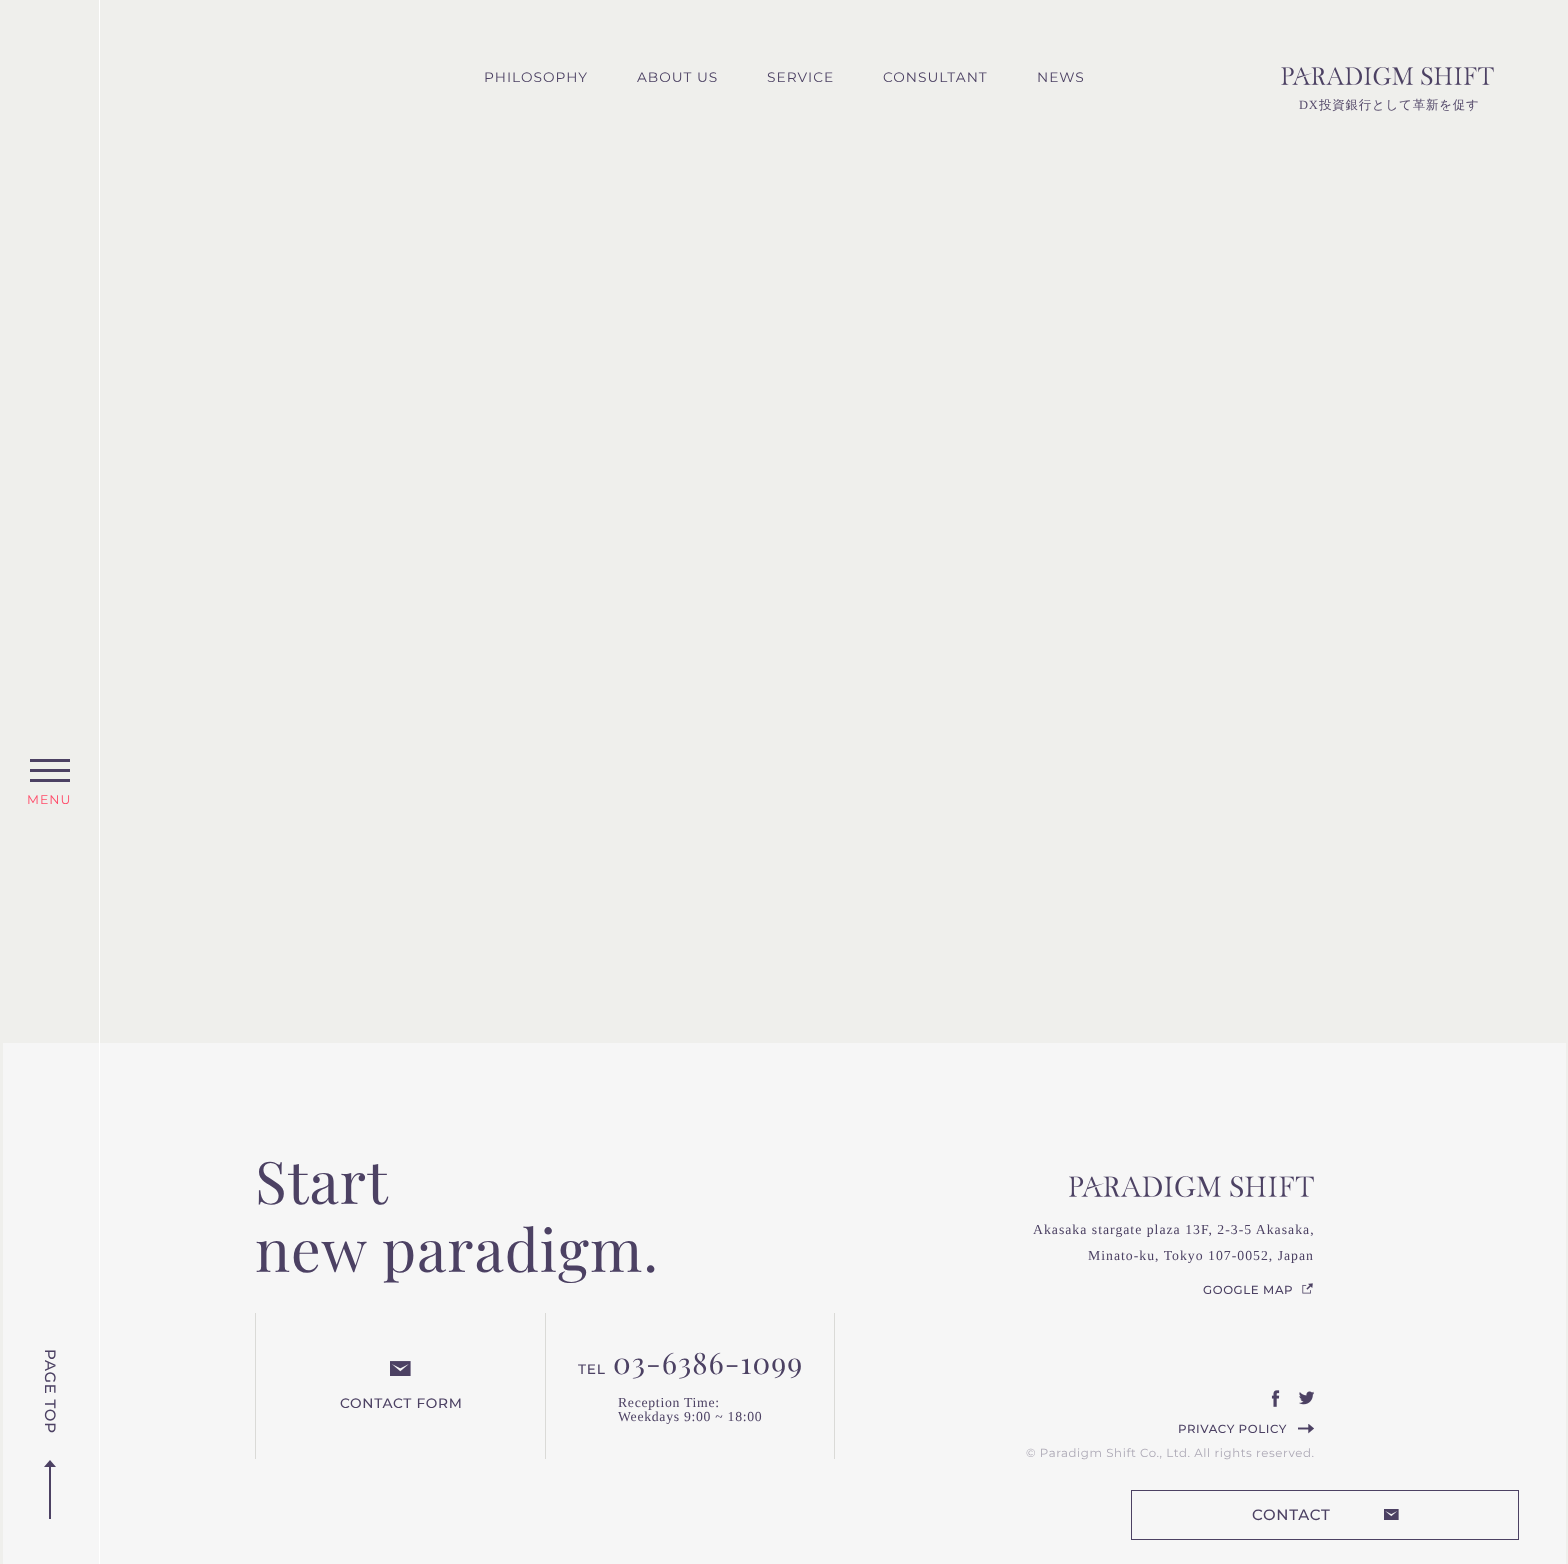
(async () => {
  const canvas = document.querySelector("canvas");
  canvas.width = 1568;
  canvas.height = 1564;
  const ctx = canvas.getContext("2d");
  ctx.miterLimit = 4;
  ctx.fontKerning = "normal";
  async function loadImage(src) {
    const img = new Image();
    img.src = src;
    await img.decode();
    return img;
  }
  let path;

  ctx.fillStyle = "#efefec";
  ctx.fillRect(0, 0, 1568, 1564);
  ctx.drawImage(await loadImage("img/1.png"), 1281, 67, 213, 19);
  for (const [x, y, w, h, color] of [
    [3, 1043, 1563, 521, "#f6f6f6"],
    [99, 0, 1, 1564, "#ffffff"],
    [30, 759, 40, 3, "#4c4163"],
    [30, 769, 40, 3, "#4c4163"],
    [30, 779, 40, 3, "#4c4163"],
  ]) {
    ctx.fillStyle = color;
    ctx.fillRect(x, y, w, h);
  }
  path = new Path2D("M49 1467V1519H51V1467H56L50 1460L44 1467Z");
  ctx.fill(path, "evenodd");
  ctx.drawImage(await loadImage("img/2.png"), 1069, 1176, 245, 22);
  ctx.drawImage(await loadImage("img/3.png"), 1302, 1283, 11, 11);
  ctx.fillStyle = "#dadad7";
  ctx.fillRect(255, 1313, 1, 146);
  ctx.drawImage(await loadImage("img/4.png"), 390, 1361, 21, 15);
  ctx.fillRect(834, 1313, 1, 146);
  ctx.fillRect(545, 1313, 1, 146);
  ctx.drawImage(await loadImage("img/5.png"), 1271, 1390, 9, 17);
  ctx.drawImage(await loadImage("img/6.png"), 1299, 1391, 15, 14);
  ctx.drawImage(await loadImage("img/7.png"), 1298, 1424, 16, 10);
  ctx.strokeStyle = "#4c4163";
  ctx.strokeRect(1131.5, 1490.5, 387, 49);
  ctx.drawImage(await loadImage("img/8.png"), 1384, 1509, 15, 11);
  ctx.letterSpacing = "1px";
  ctx.font = "13.75px Montserrat";
  ctx.fillStyle = "#4c4163";
  for (const [text, x, y] of [
    ["PHILOSOPHY", 484, 82],
    ["ABOUT US", 637, 82],
    ["SERVICE", 767, 82],
    ["CONSULTANT", 883, 82],
    ["NEWS", 1037, 82],
  ]) {
    ctx.fillText(text, x, y);
  }
  ctx.letterSpacing = "0.75px";
  ctx.font = "12.5px Liberation Serif";
  ctx.fillStyle = "#564b6b";
  ctx.fillText("DX", 1299, 109);
  ctx.font = "500 12.5px WenQuanYi Zen Hei";
  ctx.fillText("投資銀行として革新を促す", 1319, 109);
  ctx.letterSpacing = "1px";
  ctx.font = "12.5px Montserrat";
  ctx.fillStyle = "#ff4b69";
  ctx.fillText("MENU", 27, 804);
  ctx.letterSpacing = "0.75px";
  ctx.font = "500 15px Montserrat";
  ctx.fillStyle = "#4c4163";
  ctx.save();
  ctx.translate(45, 1349);
  ctx.rotate(90 * Math.PI / 180);
  ctx.fillText("PAGE TOP", 0, 0);
  ctx.restore();
  ctx.letterSpacing = "1px";
  ctx.font = "58.75px Playfair Display";
  ctx.fillText("Start", 255, 1204);
  ctx.fillText("new paradigm.", 255, 1272);
  ctx.font = "13.75px Liberation Serif";
  ctx.fillText("Akasaka stargate plaza 13F, 2-3-5 Akasaka,", 1033, 1234);
  ctx.fillText("Minato-ku, Tokyo 107-0052, Japan", 1088, 1260);
  ctx.letterSpacing = "0.6px";
  ctx.font = "500 11.75px Montserrat";
  ctx.fillText("GOOGLE MAP", 1203, 1294);
  ctx.letterSpacing = "0.7px";
  ctx.font = "500 13.75px Montserrat";
  ctx.fillText("CONTACT FORM", 340, 1408);
  ctx.fillText("TEL", 578, 1374);
  ctx.letterSpacing = "1px";
  ctx.font = "29.5px Playfair Display";
  ctx.fillText("03-6386-1099", 613, 1374);
  ctx.letterSpacing = "0.7px";
  ctx.font = "13.75px Liberation Serif";
  ctx.fillText("Reception Time:", 618, 1407);
  ctx.fillText("Weekdays 9:00 ~ 18:00", 618, 1421);
  ctx.letterSpacing = "0.6px";
  ctx.font = "500 11.75px Montserrat";
  ctx.fillText("PRIVACY POLICY", 1178, 1433);
  ctx.font = "11.75px Montserrat";
  ctx.fillStyle = "#aca8b5";
  ctx.fillText("© Paradigm Shift Co., Ltd. All rights reserved.", 1026, 1457);
  ctx.letterSpacing = "0.75px";
  ctx.font = "500 15px Montserrat";
  ctx.fillStyle = "#4c4163";
  ctx.fillText("CONTACT", 1252, 1520);
})();
